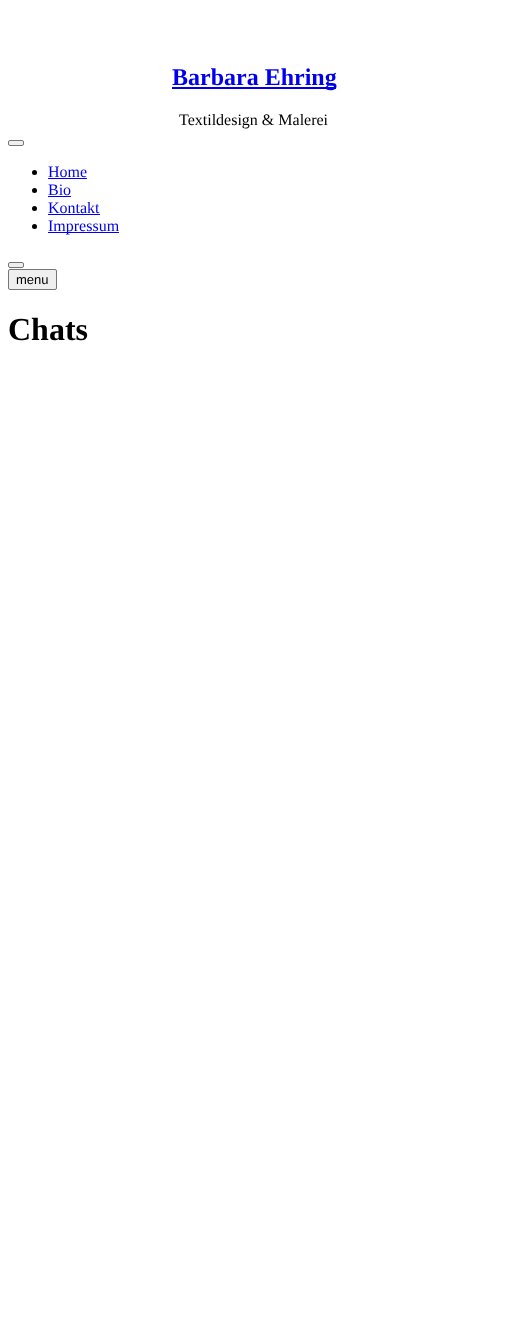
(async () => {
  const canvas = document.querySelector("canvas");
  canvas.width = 508;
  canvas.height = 1332;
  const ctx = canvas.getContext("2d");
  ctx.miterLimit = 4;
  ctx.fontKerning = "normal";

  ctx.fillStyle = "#ffffff";
  ctx.fillRect(0, 0, 508, 1332);
  ctx.fillStyle = "#0000ee";
  ctx.fillRect(172, 87, 164, 2);
  ctx.fillStyle = "#efefef";
  ctx.beginPath();
  ctx.roundRect(8.5, 140.5, 15, 5, 1.5);
  ctx.fill();
  ctx.strokeStyle = "#767676";
  ctx.stroke();
  ctx.fillStyle = "#000000";
  ctx.beginPath();
  ctx.arc(34.5, 172.5, 2.5, 0, Math.PI * 2);
  ctx.fill();
  ctx.fillStyle = "#0000ee";
  ctx.fillRect(48, 178, 39, 1);
  ctx.fillStyle = "#000000";
  ctx.beginPath();
  ctx.arc(34.5, 190.5, 2.5, 0, Math.PI * 2);
  ctx.fill();
  ctx.fillStyle = "#0000ee";
  ctx.fillRect(48, 196, 23, 1);
  ctx.fillStyle = "#000000";
  ctx.beginPath();
  ctx.arc(34.5, 208.5, 2.5, 0, Math.PI * 2);
  ctx.fill();
  ctx.fillStyle = "#0000ee";
  ctx.fillRect(48, 214, 52, 1);
  ctx.fillStyle = "#000000";
  ctx.beginPath();
  ctx.arc(34.5, 226.5, 2.5, 0, Math.PI * 2);
  ctx.fill();
  ctx.fillStyle = "#0000ee";
  ctx.fillRect(48, 232, 71, 1);
  ctx.fillStyle = "#efefef";
  ctx.beginPath();
  ctx.roundRect(8.5, 262.5, 15, 5, 1.5);
  ctx.fill();
  ctx.stroke();
  ctx.beginPath();
  ctx.roundRect(8.5, 269.5, 48, 20, 1.5);
  ctx.fill();
  ctx.stroke();
  ctx.font = "bold 24px Liberation Serif";
  ctx.fillStyle = "#0000ee";
  ctx.fillText("Barbara Ehring", 172, 85);
  ctx.font = "16px Liberation Serif";
  ctx.fillStyle = "#000000";
  ctx.fillText("Textildesign & Malerei", 179, 125);
  ctx.fillStyle = "#0000ee";
  for (const [text, x, y] of [
    ["Home", 48, 177],
    ["Bio", 48, 195],
    ["Kontakt", 48, 213],
    ["Impressum", 48, 231],
  ]) {
    ctx.fillText(text, x, y);
  }
  ctx.font = "13px Liberation Sans";
  ctx.fillStyle = "#000000";
  ctx.fillText("menu", 16, 284);
  ctx.font = "bold 32px Liberation Serif";
  ctx.fillText("Chats", 8, 340);
})();
